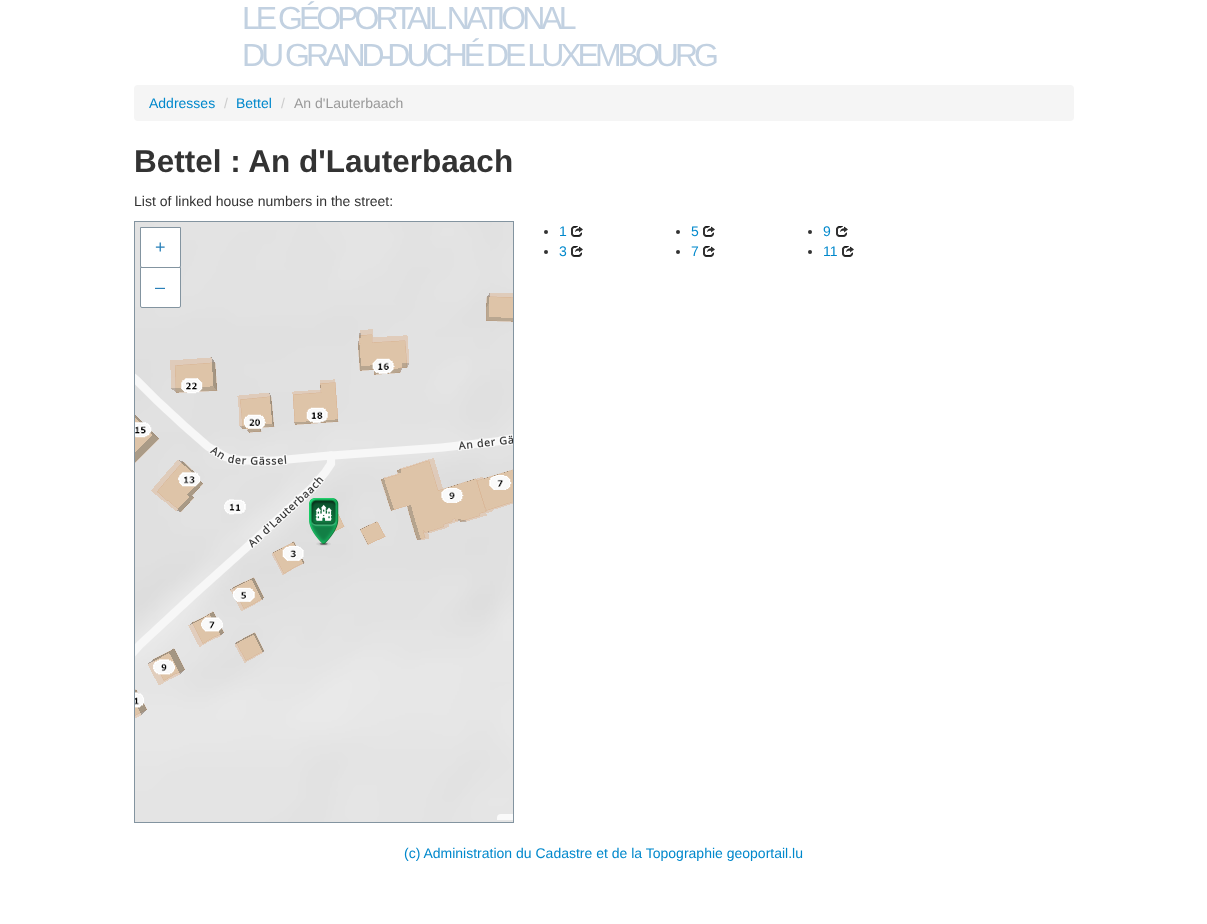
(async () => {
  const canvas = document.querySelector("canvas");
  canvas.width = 1207;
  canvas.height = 924;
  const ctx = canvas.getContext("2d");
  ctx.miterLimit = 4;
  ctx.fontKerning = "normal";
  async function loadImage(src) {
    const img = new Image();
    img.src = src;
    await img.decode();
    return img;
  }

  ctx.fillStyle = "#ffffff";
  ctx.fillRect(0, 0, 1207, 924);
  ctx.fillStyle = "#f5f5f5";
  ctx.beginPath();
  ctx.roundRect(134, 85, 940, 36, 4);
  ctx.fill();
  ctx.strokeStyle = "#8394a0";
  ctx.strokeRect(134.5, 221.5, 379, 601);
  ctx.drawImage(await loadImage("img/1.png"), 135, 222, 378, 600);
  ctx.drawImage(await loadImage("img/2.png"), 135, 358, 377, 350);
  ctx.fillStyle = "#ffffff";
  ctx.beginPath();
  ctx.roundRect(140.5, 227.5, 40, 40, [0, 0, 1.5, 1.5]);
  ctx.fill();
  ctx.stroke();
  ctx.beginPath();
  ctx.roundRect(140.5, 267.5, 40, 40, [0, 0, 1.5, 1.5]);
  ctx.fill();
  ctx.stroke();
  ctx.drawImage(await loadImage("img/3.png"), 309, 498, 30, 48);
  ctx.fillStyle = "#fafafa";
  ctx.beginPath();
  ctx.roundRect(497, 814, 16, 6, [4, 0, 0, 0]);
  ctx.fill();
  ctx.fillStyle = "#333333";
  ctx.beginPath();
  ctx.arc(546, 232, 2, 0, Math.PI * 2);
  ctx.fill();
  ctx.drawImage(await loadImage("img/4.png"), 571, 226, 12, 11);
  ctx.beginPath();
  ctx.arc(678, 232, 2, 0, Math.PI * 2);
  ctx.fill();
  ctx.drawImage(await loadImage("img/4.png"), 703, 226, 12, 11);
  ctx.beginPath();
  ctx.arc(810, 232, 2, 0, Math.PI * 2);
  ctx.fill();
  ctx.drawImage(await loadImage("img/4.png"), 836, 226, 12, 11);
  ctx.beginPath();
  ctx.arc(546, 252, 2, 0, Math.PI * 2);
  ctx.fill();
  ctx.drawImage(await loadImage("img/4.png"), 571, 246, 12, 11);
  ctx.beginPath();
  ctx.arc(678, 252, 2, 0, Math.PI * 2);
  ctx.fill();
  ctx.drawImage(await loadImage("img/4.png"), 703, 246, 12, 11);
  ctx.beginPath();
  ctx.arc(810, 252, 2, 0, Math.PI * 2);
  ctx.fill();
  ctx.drawImage(await loadImage("img/4.png"), 842, 246, 12, 11);
  ctx.letterSpacing = "-4px";
  ctx.font = "32px Liberation Sans";
  ctx.fillStyle = "#c2d1e1";
  ctx.fillText("LE GÉOPORTAIL NATIONAL", 242, 29);
  ctx.fillText("DU GRAND-DUCHÉ DE LUXEMBOURG", 242, 66);
  ctx.letterSpacing = "0px";
  ctx.font = "14px Liberation Sans";
  ctx.fillStyle = "#0088cc";
  ctx.fillText("Addresses", 149, 108);
  ctx.fillStyle = "#cccccc";
  ctx.fillText("/", 224, 108);
  ctx.fillStyle = "#0088cc";
  ctx.fillText("Bettel", 236, 108);
  ctx.fillStyle = "#cccccc";
  ctx.fillText("/", 281, 108);
  ctx.fillStyle = "#999999";
  ctx.fillText("An d'Lauterbaach", 294, 108);
  ctx.font = "bold 31.5px Liberation Sans";
  ctx.fillStyle = "#333333";
  ctx.fillText("Bettel : An d'Lauterbaach", 134, 172);
  ctx.font = "14px Liberation Sans";
  ctx.fillText("List of linked house numbers in the street:", 134, 206);
  ctx.font = "18px Liberation Sans";
  ctx.fillStyle = "#2980b9";
  ctx.fillText("+", 155, 253);
  ctx.fillText("–", 155, 293);
  ctx.font = "14px Liberation Sans";
  ctx.fillStyle = "#0088cc";
  for (const [text, x, y] of [
    ["1", 559, 236],
    ["5", 691, 236],
    ["9", 823, 236],
    ["3", 559, 256],
    ["7", 691, 256],
    ["11", 823, 256],
    ["(c) Administration du Cadastre et de la Topographie geoportail.lu", 404, 858],
  ]) {
    ctx.fillText(text, x, y);
  }
})();
